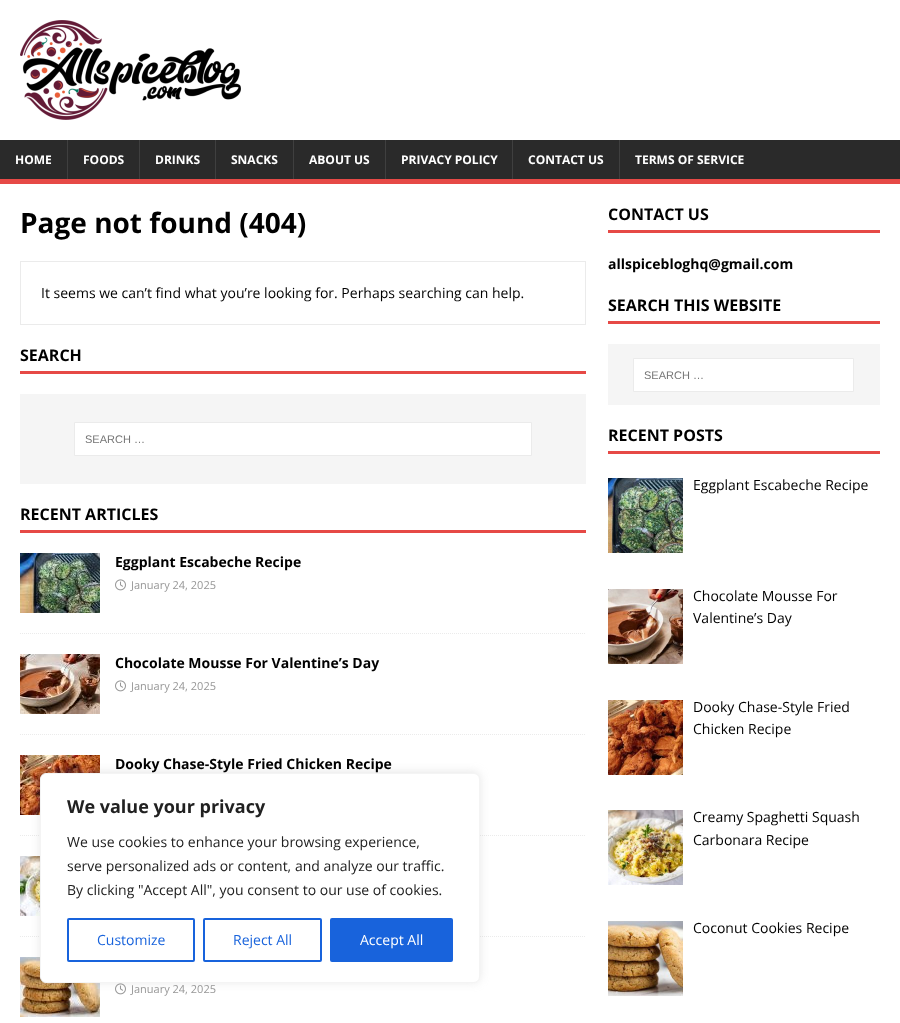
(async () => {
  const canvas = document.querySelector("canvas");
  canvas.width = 900;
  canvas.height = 1023;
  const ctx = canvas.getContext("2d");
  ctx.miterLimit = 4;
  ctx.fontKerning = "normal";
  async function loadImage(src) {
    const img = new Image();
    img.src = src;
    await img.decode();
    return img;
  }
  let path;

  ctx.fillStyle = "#ffffff";
  ctx.fillRect(0, 0, 900, 1023);
  ctx.drawImage(await loadImage("img/1.png"), 20, 20, 221, 100);
  for (const [x, y, w, h, color] of [
    [0, 140, 900, 39, "#2a2a2a"],
    [0, 179, 900, 5, "#e64946"],
    [67, 140, 1, 39, "#3f3f3f"],
    [139, 140, 1, 39, "#3f3f3f"],
    [215, 140, 1, 39, "#3f3f3f"],
    [293, 140, 1, 39, "#3f3f3f"],
    [385, 140, 1, 39, "#3f3f3f"],
    [512, 140, 1, 39, "#3f3f3f"],
    [619, 140, 1, 39, "#3f3f3f"],
  ]) {
    ctx.fillStyle = color;
    ctx.fillRect(x, y, w, h);
  }
  ctx.strokeStyle = "#ebebeb";
  ctx.strokeRect(20.5, 261.5, 565, 63);
  ctx.fillStyle = "#e64946";
  ctx.fillRect(20, 371, 566, 3);
  ctx.fillStyle = "#f5f5f5";
  ctx.fillRect(20, 394, 566, 90);
  ctx.fillStyle = "#ffffff";
  ctx.beginPath();
  ctx.rect(74.5, 422.5, 457, 33);
  ctx.fill();
  ctx.stroke();
  ctx.fillStyle = "#e64946";
  ctx.fillRect(20, 530, 566, 3);
  path = new Path2D("M20 633.5H586");
  ctx.setLineDash([1, 1]);
  ctx.stroke(path);
  ctx.drawImage(await loadImage("img/2.png"), 20, 553, 80, 60);
  ctx.drawImage(await loadImage("img/3.png"), 115, 579, 11, 12);
  path = new Path2D("M20 734.5H586");
  ctx.stroke(path);
  ctx.drawImage(await loadImage("img/4.png"), 20, 654, 80, 60);
  ctx.drawImage(await loadImage("img/3.png"), 115, 680, 11, 12);
  path = new Path2D("M20 835.5H586");
  ctx.stroke(path);
  ctx.drawImage(await loadImage("img/5.png"), 20, 755, 80, 60);
  path = new Path2D("M20 936.5H586");
  ctx.stroke(path);
  ctx.drawImage(await loadImage("img/6.png"), 20, 856, 20, 60);
  ctx.drawImage(await loadImage("img/7.png"), 20, 957, 80, 60);
  ctx.drawImage(await loadImage("img/3.png"), 115, 983, 11, 12);
  for (const [x, y, w, h, color] of [
    [608, 230, 272, 3, "#e64946"],
    [608, 321, 272, 3, "#e64946"],
    [608, 344, 272, 61, "#f5f5f5"],
  ]) {
    ctx.fillStyle = color;
    ctx.fillRect(x, y, w, h);
  }
  ctx.fillStyle = "#ffffff";
  ctx.beginPath();
  ctx.rect(633.5, 358.5, 220, 33);
  ctx.fill();
  ctx.setLineDash([]);
  ctx.stroke();
  ctx.fillStyle = "#e64946";
  ctx.fillRect(608, 451, 272, 3);
  ctx.drawImage(await loadImage("img/8.png"), 608, 478, 75, 75);
  ctx.drawImage(await loadImage("img/9.png"), 608, 589, 75, 75);
  ctx.drawImage(await loadImage("img/10.png"), 608, 700, 75, 75);
  ctx.drawImage(await loadImage("img/11.png"), 608, 810, 75, 75);
  ctx.drawImage(await loadImage("img/12.png"), 608, 921, 75, 75);
  ctx.fillStyle = "rgba(172, 171, 171, 0.3)";
  ctx.filter = "blur(5px)";
  ctx.beginPath();
  ctx.roundRect(40, 772, 440, 210, 6);
  ctx.fill();
  ctx.filter = "none";
  ctx.fillStyle = "#ffffff";
  ctx.beginPath();
  ctx.roundRect(40.5, 773.5, 439, 209, 5.5);
  ctx.fill();
  ctx.strokeStyle = "#f4f4f4";
  ctx.stroke();
  ctx.beginPath();
  ctx.roundRect(68, 919, 126, 42, 1);
  ctx.strokeStyle = "#1863dc";
  ctx.lineWidth = 2;
  ctx.stroke();
  ctx.beginPath();
  ctx.roundRect(204, 919, 117, 42, 1);
  ctx.stroke();
  ctx.fillStyle = "#1863dc";
  ctx.beginPath();
  ctx.roundRect(331, 919, 121, 42, 1);
  ctx.fill();
  ctx.stroke();
  ctx.font = "bold 12px Open Sans";
  ctx.fillStyle = "#ffffff";
  for (const [text, x, y] of [
    ["HOME", 15, 164],
    ["FOODS", 83, 164],
    ["DRINKS", 155, 164],
    ["SNACKS", 231, 164],
    ["ABOUT US", 309, 164],
    ["PRIVACY POLICY", 401, 164],
    ["CONTACT US", 528, 164],
    ["TERMS OF SERVICE", 635, 164],
  ]) {
    ctx.fillText(text, x, y);
  }
  ctx.font = "bold 28px Open Sans";
  ctx.fillStyle = "#000000";
  ctx.fillText("Page not found (404)", 20, 233);
  ctx.font = "14px Open Sans";
  ctx.fillText("It seems we can’t find what you’re looking for. Perhaps searching can help.", 41, 298);
  ctx.font = "bold 16px Open Sans";
  ctx.fillText("SEARCH", 20, 361);
  ctx.font = "11px Liberation Sans";
  ctx.fillStyle = "#757575";
  ctx.fillText("SEARCH …", 85, 443);
  ctx.font = "bold 16px Open Sans";
  ctx.fillStyle = "#000000";
  ctx.fillText("RECENT ARTICLES", 20, 520);
  ctx.font = "bold 14px Open Sans";
  ctx.fillText("Eggplant Escabeche Recipe", 115, 567);
  ctx.font = "11px Open Sans";
  ctx.fillStyle = "#979797";
  ctx.fillText("January 24, 2025", 131, 589);
  ctx.font = "bold 14px Open Sans";
  ctx.fillStyle = "#000000";
  ctx.fillText("Chocolate Mousse For Valentine’s Day", 115, 668);
  ctx.font = "11px Open Sans";
  ctx.fillStyle = "#979797";
  ctx.fillText("January 24, 2025", 131, 690);
  ctx.font = "bold 14px Open Sans";
  ctx.fillStyle = "#000000";
  ctx.fillText("Dooky Chase-Style Fried Chicken Recipe", 115, 769);
  ctx.font = "11px Open Sans";
  ctx.fillStyle = "#979797";
  ctx.fillText("January 24, 2025", 131, 993);
  ctx.font = "bold 16px Open Sans";
  ctx.fillStyle = "#000000";
  ctx.fillText("CONTACT US", 608, 220);
  ctx.font = "bold 14px Open Sans";
  ctx.fillText("allspicebloghq@gmail.com", 608, 269);
  ctx.font = "bold 16px Open Sans";
  ctx.fillText("SEARCH THIS WEBSITE", 608, 311);
  ctx.font = "11px Liberation Sans";
  ctx.fillStyle = "#757575";
  ctx.fillText("SEARCH …", 644, 379);
  ctx.font = "bold 16px Open Sans";
  ctx.fillStyle = "#000000";
  ctx.fillText("RECENT POSTS", 608, 441);
  ctx.font = "14px Open Sans";
  for (const [text, x, y] of [
    ["Eggplant Escabeche Recipe", 693, 490],
    ["Chocolate Mousse For", 693, 601],
    ["Valentine’s Day", 693, 623],
    ["Dooky Chase-Style Fried", 693, 712],
    ["Chicken Recipe", 693, 734],
    ["Creamy Spaghetti Squash", 693, 822],
    ["Carbonara Recipe", 693, 845],
    ["Coconut Cookies Recipe", 693, 933],
  ]) {
    ctx.fillText(text, x, y);
  }
  ctx.font = "bold 18px Open Sans";
  ctx.fillStyle = "#212121";
  ctx.fillText("We value your privacy", 67, 813);
  ctx.font = "14px Open Sans";
  for (const [text, x, y] of [
    ["We use cookies to enhance your browsing experience,", 67, 847],
    ["serve personalized ads or content, and analyze our traffic.", 67, 871],
    ["By clicking \"Accept All\", you consent to our use of cookies.", 67, 895],
  ]) {
    ctx.fillText(text, x, y);
  }
  ctx.fillStyle = "#1863dc";
  ctx.fillText("Customize", 97, 945);
  ctx.fillText("Reject All", 233, 945);
  ctx.fillStyle = "#ffffff";
  ctx.fillText("Accept All", 360, 945);
})();
